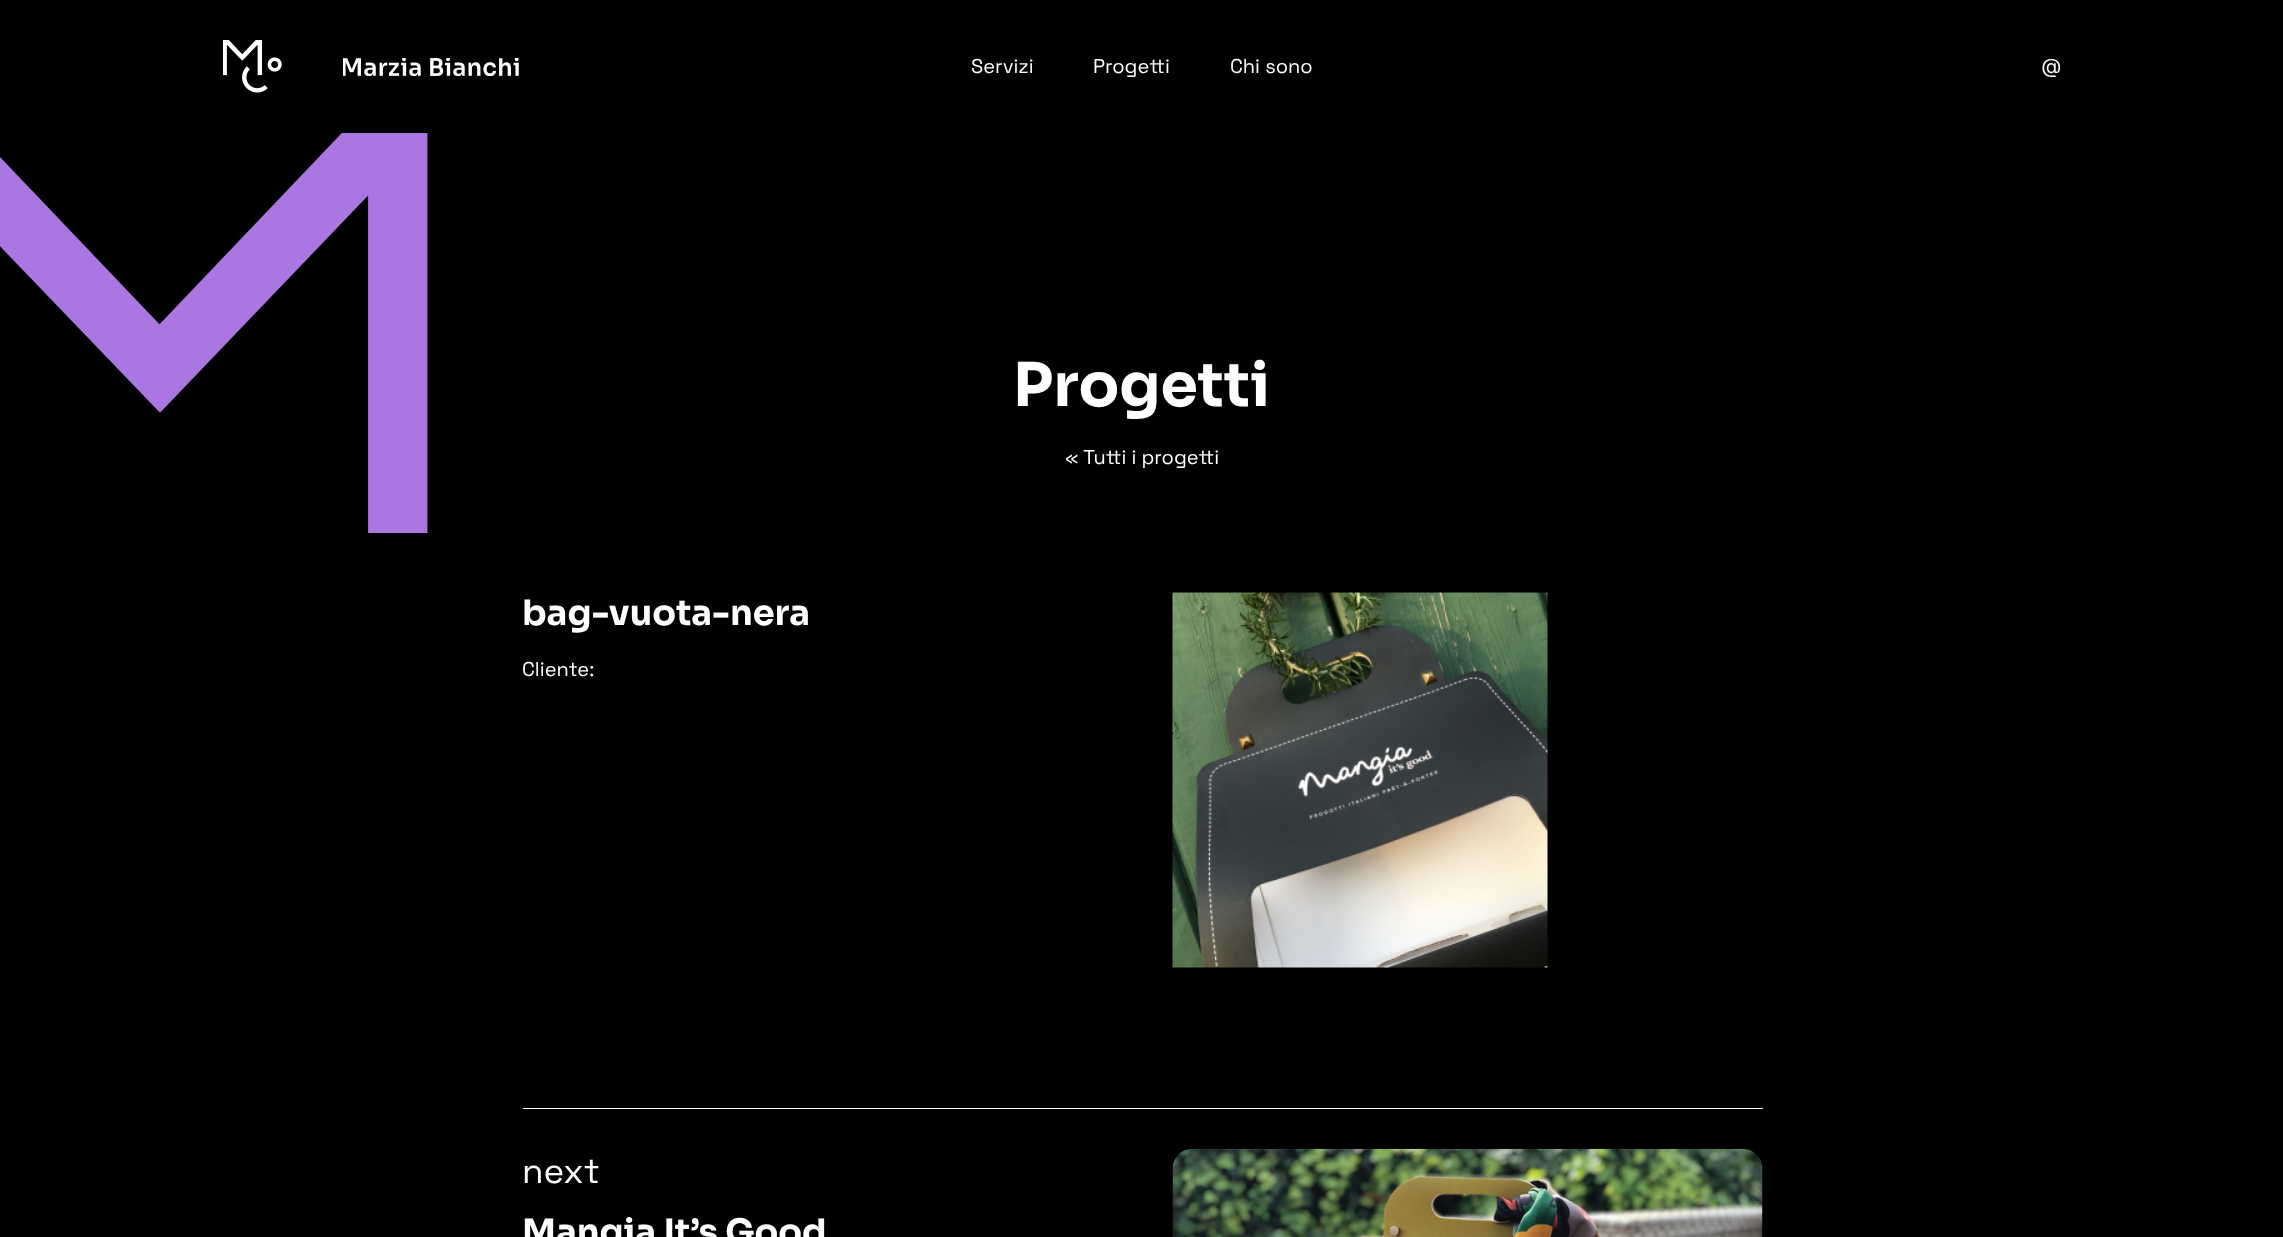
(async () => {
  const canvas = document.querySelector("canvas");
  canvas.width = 2283;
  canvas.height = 1237;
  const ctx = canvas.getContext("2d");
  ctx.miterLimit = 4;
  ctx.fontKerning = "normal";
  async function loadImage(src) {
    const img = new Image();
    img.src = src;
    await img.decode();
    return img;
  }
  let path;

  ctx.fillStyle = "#000000";
  ctx.fillRect(0, 0, 2283, 1237);
  ctx.drawImage(await loadImage("img/1.png"), 223, 40, 59, 53);
  ctx.drawImage(await loadImage("img/2.png"), 343, 58, 176, 18);
  ctx.save();
  ctx.beginPath();
  ctx.rect(0, 133, 428, 400);
  ctx.clip();
  ctx.fillStyle = "#aa76e1";
  path = new Path2D("M367 195L160 410L-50 191V606H-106V135H-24L160 327L343 134L426 135V606H370V191Z");
  ctx.fill(path);
  path = new Path2D("M366.5 194.5L160 410L-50 191.5V605.5H-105.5V135H-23.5L159.5 327L343 134.5L425.5 135V605.5H370V191Z");
  ctx.strokeStyle = "#aa76e1";
  ctx.lineWidth = 3.8;
  ctx.stroke(path);
  ctx.restore();
  ctx.drawImage(await loadImage("img/3.png"), 1172, 592, 376, 376);
  ctx.fillStyle = "#ffffff";
  ctx.fillRect(523, 1108, 1240, 1);
  ctx.drawImage(await loadImage("img/4.png"), 1172, 1148, 591, 89);
  ctx.font = "20px Space Grotesk";
  for (const [text, x, y] of [
    ["Servizi", 971, 73],
    ["Progetti", 1093, 73],
    ["Chi sono", 1230, 73],
    ["@", 2041, 73],
  ]) {
    ctx.fillText(text, x, y);
  }
  ctx.font = "bold 60px Sora";
  ctx.fillText("Progetti", 1013, 406);
  ctx.font = "20px Space Grotesk";
  ctx.fillText("« Tutti i progetti", 1065, 464);
  ctx.font = "bold 35px Sora";
  ctx.fillText("bag-vuota-nera", 522, 625);
  ctx.font = "20px Space Grotesk";
  ctx.fillText("Cliente:", 522, 676);
  ctx.font = "35px Space Grotesk";
  ctx.fillText("next", 522, 1183);
  ctx.font = "bold 35px Sora";
  ctx.fillText("Mangia It’s Good", 522, 1244);
})();
